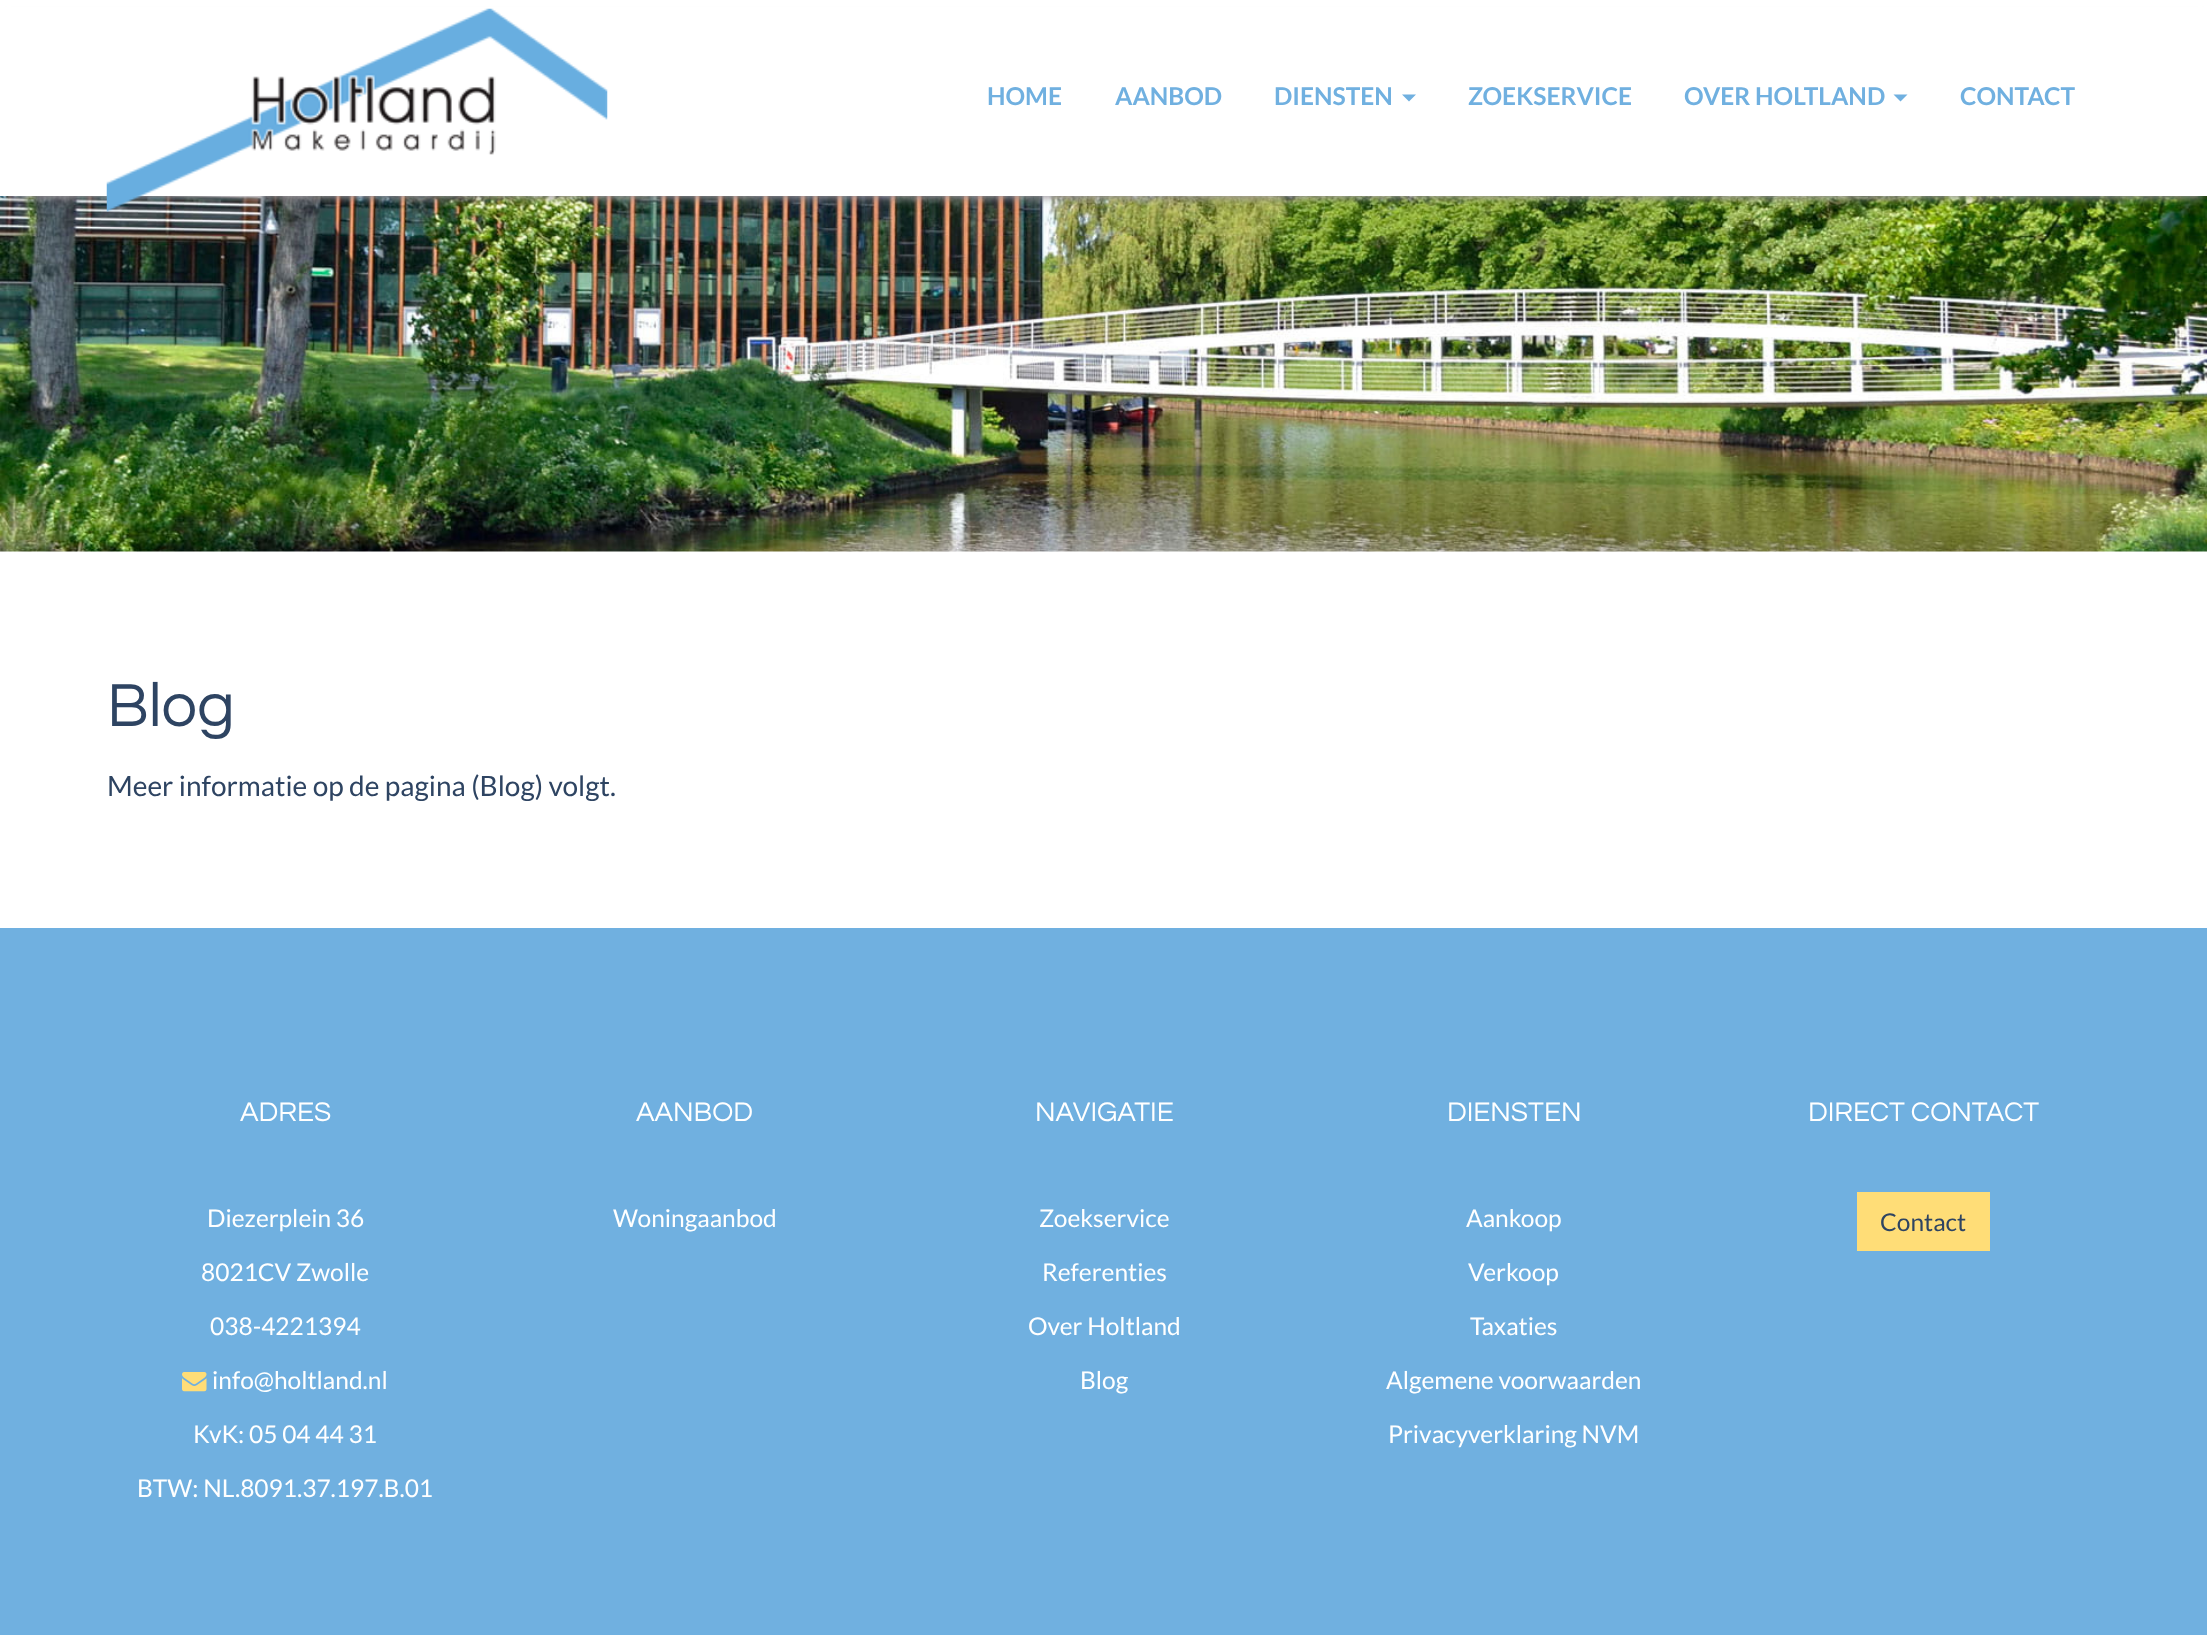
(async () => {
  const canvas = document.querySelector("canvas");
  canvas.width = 2207;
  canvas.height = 1635;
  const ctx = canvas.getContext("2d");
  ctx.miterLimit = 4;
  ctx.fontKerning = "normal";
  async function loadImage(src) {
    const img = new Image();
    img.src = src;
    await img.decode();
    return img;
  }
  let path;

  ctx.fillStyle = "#ffffff";
  ctx.fillRect(0, 0, 2207, 1635);
  ctx.drawImage(await loadImage("img/2.png"), 0, 196, 2207, 356);
  ctx.fillStyle = "#9e989e";
  ctx.filter = "blur(4.5px)";
  ctx.beginPath();
  ctx.rect(7, 16, 2195, 182);
  ctx.fill();
  ctx.filter = "none";
  ctx.fillStyle = "#ffffff";
  ctx.fillRect(0, 7, 2207, 189);
  ctx.drawImage(await loadImage("img/1.png"), 106, 8, 502, 204);
  ctx.fillStyle = "#70b0e0";
  path = new Path2D("M1402 94.5H1416L1409 101.5Z");
  ctx.fill(path);
  path = new Path2D("M1893.5 94.5H1907.5L1900.5 101.5Z");
  ctx.fill(path);
  ctx.fillRect(0, 928, 2207, 707);
  ctx.drawImage(await loadImage("img/3.png"), 182, 1372, 25, 20);
  ctx.fillStyle = "#ffdd77";
  ctx.fillRect(1857, 1192, 133, 59);
  ctx.font = "bold 24.5px Lato";
  ctx.fillStyle = "#70b0e0";
  for (const [text, x, y] of [
    ["HOME", 987, 105],
    ["AANBOD", 1115, 105],
    ["DIENSTEN", 1274, 105],
    ["ZOEKSERVICE", 1468, 105],
    ["OVER HOLTLAND", 1684, 105],
    ["CONTACT", 1960, 105],
  ]) {
    ctx.fillText(text, x, y);
  }
  ctx.font = "63px Questrial";
  ctx.fillStyle = "#2e4462";
  ctx.fillText("Blog", 107, 726);
  ctx.font = "28px Lato";
  ctx.fillText("Meer informatie op de pagina (Blog) volgt.", 107, 796);
  ctx.font = "28px Questrial";
  ctx.fillStyle = "#ffffff";
  ctx.fillText("ADRES", 240, 1121);
  ctx.font = "24.5px Lato";
  for (const [text, x, y] of [
    ["Diezerplein 36", 207, 1227],
    ["8021CV Zwolle", 201, 1281],
    ["038-4221394", 210, 1335],
    ["info@holtland.nl", 212, 1389],
    ["KvK: 05 04 44 31", 193, 1443],
    ["BTW: NL.8091.37.197.B.01", 137, 1497],
  ]) {
    ctx.fillText(text, x, y);
  }
  ctx.font = "28px Questrial";
  ctx.fillText("AANBOD", 636, 1121);
  ctx.font = "24.5px Lato";
  ctx.fillText("Woningaanbod", 613, 1227);
  ctx.font = "28px Questrial";
  ctx.fillText("NAVIGATIE", 1035, 1121);
  ctx.font = "24.5px Lato";
  for (const [text, x, y] of [
    ["Zoekservice", 1039, 1227],
    ["Referenties", 1042, 1281],
    ["Over Holtland", 1028, 1335],
    ["Blog", 1080, 1389],
  ]) {
    ctx.fillText(text, x, y);
  }
  ctx.font = "28px Questrial";
  ctx.fillText("DIENSTEN", 1447, 1121);
  ctx.font = "24.5px Lato";
  for (const [text, x, y] of [
    ["Aankoop", 1466, 1227],
    ["Verkoop", 1468, 1281],
    ["Taxaties", 1470, 1335],
    ["Algemene voorwaarden", 1386, 1389],
    ["Privacyverklaring NVM", 1388, 1443],
  ]) {
    ctx.fillText(text, x, y);
  }
  ctx.font = "28px Questrial";
  ctx.fillText("DIRECT CONTACT", 1808, 1121);
  ctx.font = "24.5px Lato";
  ctx.fillStyle = "#2e4462";
  ctx.fillText("Contact", 1880, 1231);
})();
